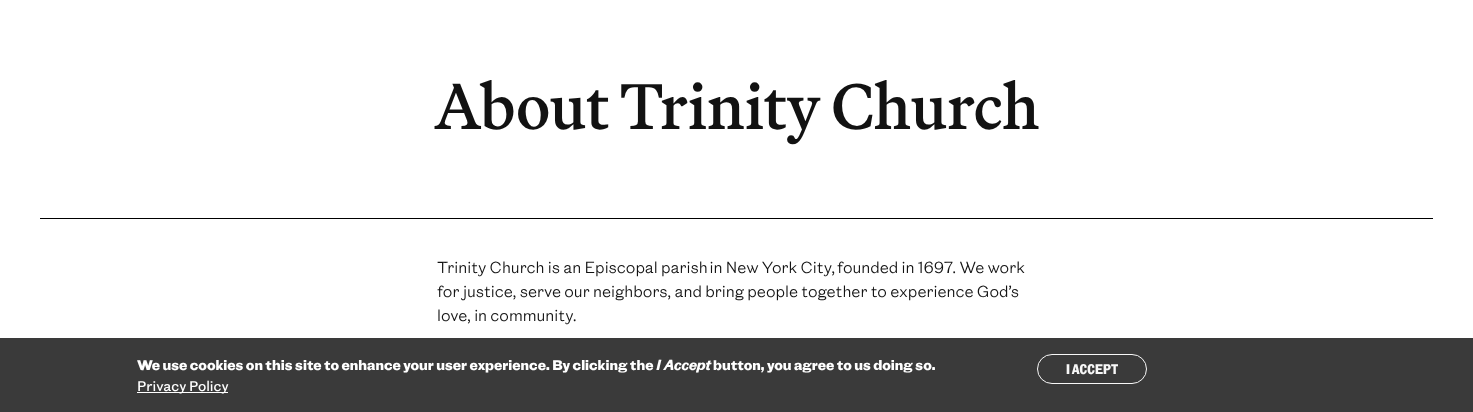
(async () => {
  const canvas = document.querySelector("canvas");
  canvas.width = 1473;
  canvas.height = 412;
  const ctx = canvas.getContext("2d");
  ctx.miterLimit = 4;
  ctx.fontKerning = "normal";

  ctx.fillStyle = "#ffffff";
  ctx.fillRect(0, 0, 1473, 412);
  for (const [x, y, w, h, color] of [
    [40, 218, 1393, 1, "#000000"],
    [0, 338, 1473, 74, "#3a3a3a"],
    [137, 392, 91, 1, "#ffffff"],
  ]) {
    ctx.fillStyle = color;
    ctx.fillRect(x, y, w, h);
  }
  ctx.beginPath();
  ctx.roundRect(1037.5, 354.5, 109, 29, 14.5);
  ctx.strokeStyle = "#f7f7f7";
  ctx.stroke();
  ctx.font = "500 64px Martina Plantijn";
  ctx.fillStyle = "#121212";
  ctx.fillText("About Trinity Church", 434, 129);
  ctx.font = "300 16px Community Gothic";
  for (const [text, x, y] of [
    ["Trinity Church is an Episcopal parish in New York City, founded in 1697. We work", 437, 273],
    ["for justice, serve our neighbors, and bring people together to experience God’s", 437, 297],
    ["love, in community.", 437, 321],
  ]) {
    ctx.fillText(text, x, y);
  }
  ctx.font = "bold 14px Community Gothic";
  ctx.fillStyle = "#ffffff";
  ctx.fillText("We use cookies on this site to enhance your user experience. By clicking the", 137, 370);
  ctx.font = "italic bold 14px Community Gothic";
  ctx.fillText("I Accept", 656, 370);
  ctx.font = "bold 14px Community Gothic";
  ctx.fillText("button, you agree to us doing so.", 713, 370);
  ctx.font = "14px Community Gothic";
  ctx.fillText("Privacy Policy", 137, 391);
  ctx.font = "bold 14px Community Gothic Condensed";
  ctx.fillStyle = "#f7f7f7";
  ctx.fillText("I ACCEPT", 1066, 374);
})();
